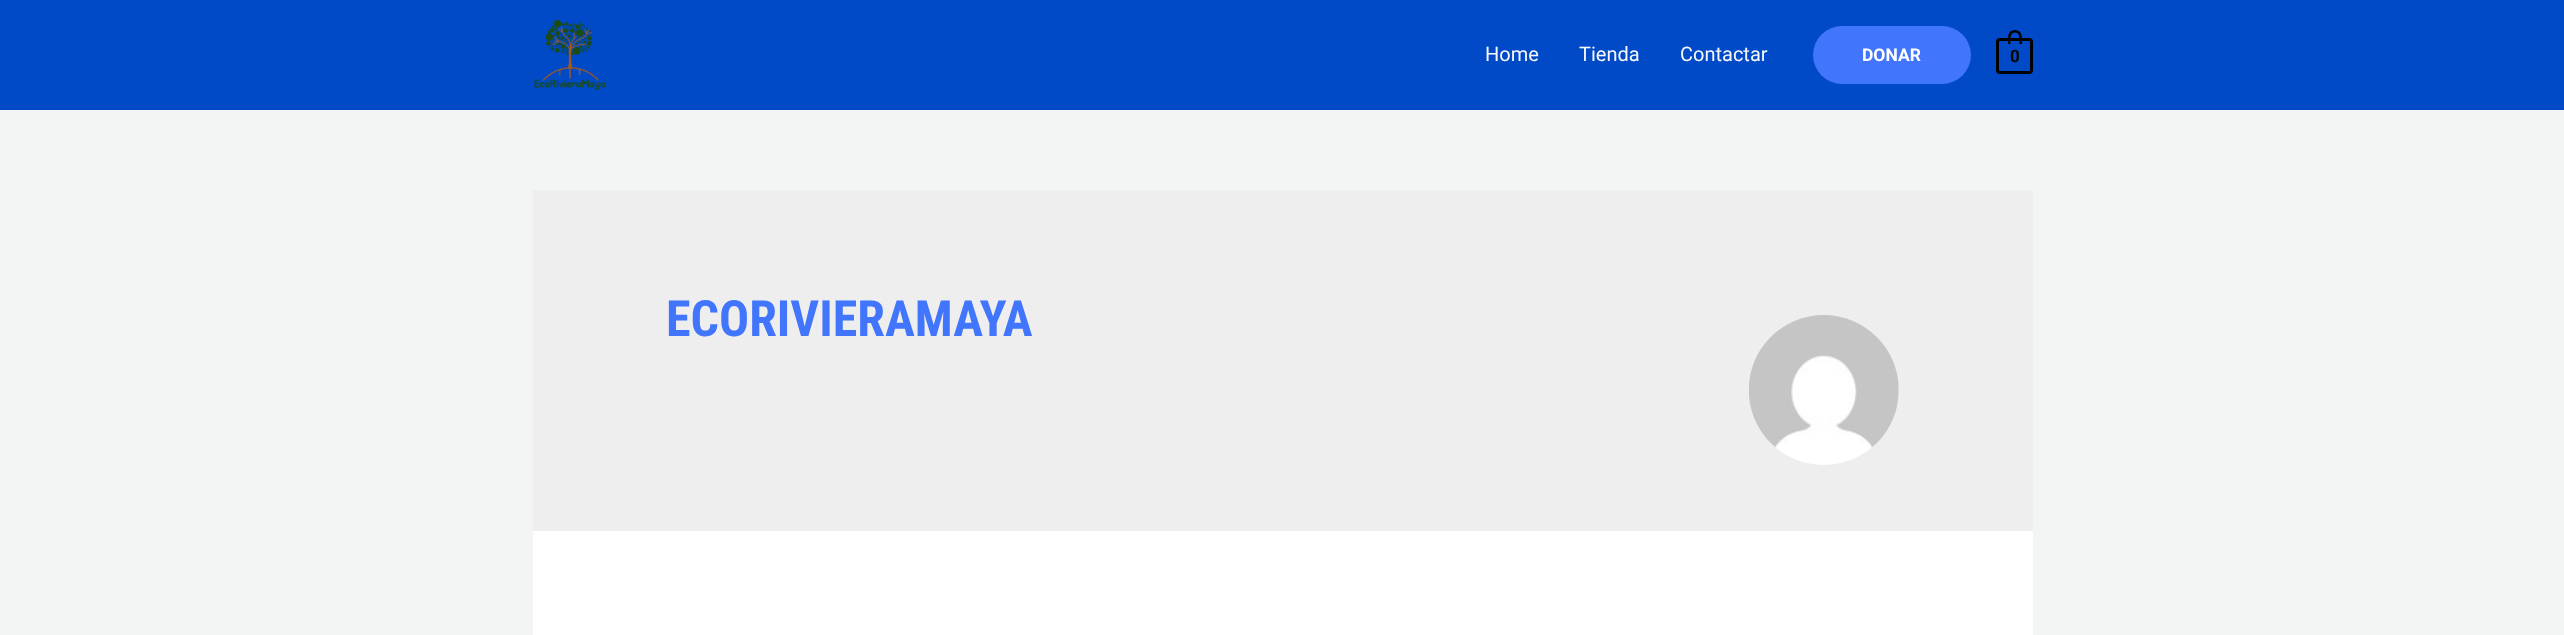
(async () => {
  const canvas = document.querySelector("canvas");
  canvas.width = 2564;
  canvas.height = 635;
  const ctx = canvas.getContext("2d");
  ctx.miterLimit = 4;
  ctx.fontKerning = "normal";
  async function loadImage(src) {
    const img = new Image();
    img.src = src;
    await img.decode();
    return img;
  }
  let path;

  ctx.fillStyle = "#f3f5f5";
  ctx.fillRect(0, 0, 2564, 635);
  ctx.fillStyle = "#004ac8";
  ctx.fillRect(0, 0, 2564, 110);
  ctx.drawImage(await loadImage("img/1.png"), 534, 20, 72, 70);
  ctx.fillStyle = "#4175fc";
  ctx.beginPath();
  ctx.roundRect(1813, 26, 158, 58, 29);
  ctx.fill();
  ctx.beginPath();
  ctx.roundRect(1997.5, 39.5, 34, 33, 2.5);
  ctx.strokeStyle = "#000000";
  ctx.lineWidth = 3;
  ctx.stroke();
  ctx.fillStyle = "#000000";
  path = new Path2D("M2015 30C2023 30 2022 38.5 2022 44H2008C2008 38.5 2007 30 2015 30ZM2015 32.5C2020.5 32.5 2019.5 40 2019.5 44H2010.5C2010.5 40 2009.5 32.5 2015 32.5Z");
  ctx.fill(path, "evenodd");
  ctx.fillStyle = "#eeeeee";
  ctx.fillRect(533, 190, 1500, 341);
  ctx.drawImage(await loadImage("img/2.png"), 1749, 315, 150, 150);
  ctx.fillStyle = "#ffffff";
  ctx.fillRect(533, 531, 1500, 104);
  ctx.font = "20px Roboto";
  ctx.fillStyle = "#f6f7f8";
  for (const [text, x, y] of [
    ["Home", 1485, 61],
    ["Tienda", 1579, 61],
    ["Contactar", 1680, 61],
  ]) {
    ctx.fillText(text, x, y);
  }
  ctx.font = "bold 17.5px Roboto";
  ctx.fillStyle = "#ffffff";
  ctx.fillText("DONAR", 1862, 61);
  ctx.font = "bold 17px Roboto";
  ctx.fillStyle = "#000000";
  ctx.fillText("0", 2010, 62);
  ctx.font = "bold 50px Roboto Condensed";
  ctx.fillStyle = "#4175fc";
  ctx.fillText("ECORIVIERAMAYA", 666, 336);
})();
